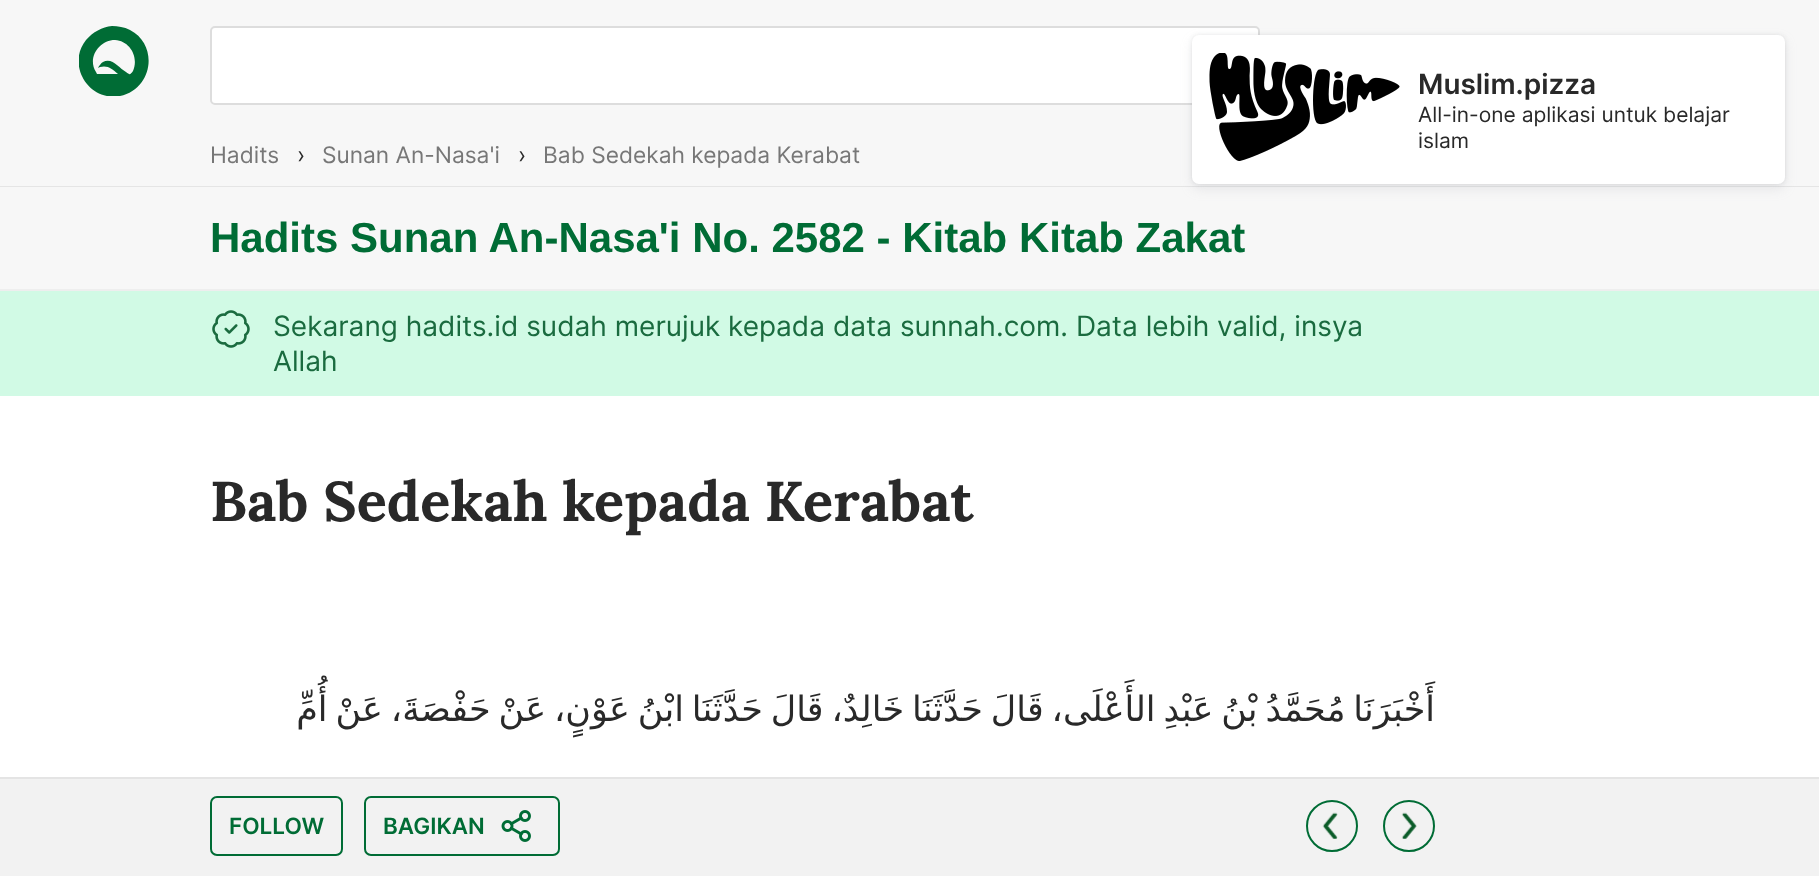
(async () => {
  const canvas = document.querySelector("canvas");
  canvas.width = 1819;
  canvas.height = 876;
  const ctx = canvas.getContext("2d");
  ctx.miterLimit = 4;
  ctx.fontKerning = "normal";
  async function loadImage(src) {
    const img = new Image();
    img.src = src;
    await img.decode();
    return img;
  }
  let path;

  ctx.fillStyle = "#ffffff";
  ctx.fillRect(0, 0, 1819, 876);
  ctx.fillStyle = "#f7f7f7";
  ctx.fillRect(0, 0, 1819, 186);
  ctx.save();
  ctx.beginPath();
  ctx.rect(79, 26, 70, 70);
  ctx.clip();
  ctx.fillStyle = "#006c35";
  path = new Path2D("M112 26C102 27 93 32 86 40C66 65 89 102 120 96C153 89 159 45 130 30C124 27 118 26 112 26M115 40C130 41 139 57 133 71C130 75 130 75 126 72C119 68 112 57 103 62C101 63 99 66 98 68L100 67C108 65 112 69 118 74H97L96 72C87 58 99 40 115 40");
  ctx.fill(path, "evenodd");
  ctx.restore();
  ctx.fillStyle = "#ffffff";
  ctx.beginPath();
  ctx.roundRect(211, 27, 1048, 77, 4);
  ctx.fill();
  ctx.strokeStyle = "#dddddd";
  ctx.lineWidth = 2;
  ctx.stroke();
  ctx.fillStyle = "#e5e5e5";
  ctx.fillRect(0, 186, 1819, 1);
  ctx.fillStyle = "#f7f7f7";
  ctx.fillRect(0, 187, 1819, 102);
  ctx.fillStyle = "rgba(165, 165, 175, 0.2)";
  ctx.filter = "blur(6px)";
  ctx.beginPath();
  ctx.roundRect(1192, 40, 593, 149, 7);
  ctx.fill();
  ctx.filter = "none";
  ctx.fillStyle = "rgba(44, 47, 51, 0.1)";
  ctx.filter = "blur(2px)";
  ctx.beginPath();
  ctx.roundRect(1192, 35, 593, 149, 7);
  ctx.fill();
  ctx.filter = "none";
  ctx.fillStyle = "#ffffff";
  ctx.beginPath();
  ctx.roundRect(1192, 35, 593, 149, 7);
  ctx.fill();
  ctx.drawImage(await loadImage("img/1.png"), 1209, 53, 191, 108);
  ctx.fillStyle = "#eeeeee";
  ctx.fillRect(0, 289, 1819, 2);
  ctx.fillStyle = "#d1fae5";
  ctx.fillRect(0, 291, 1819, 105);
  ctx.drawImage(await loadImage("img/2.png"), 212, 310, 38, 38);
  ctx.fillStyle = "#f2f2f2";
  ctx.fillRect(0, 779, 1819, 97);
  ctx.fillStyle = "#e4e4e4";
  ctx.fillRect(0, 777, 1819, 2);
  ctx.beginPath();
  ctx.roundRect(211, 797, 131, 58, 6);
  ctx.strokeStyle = "#006c35";
  ctx.stroke();
  ctx.beginPath();
  ctx.roundRect(365, 797, 194, 58, 6);
  ctx.stroke();
  ctx.drawImage(await loadImage("img/3.png"), 501, 810, 30, 32);
  ctx.beginPath();
  ctx.arc(1332, 826, 25, 0, Math.PI * 2);
  ctx.stroke();
  ctx.drawImage(await loadImage("img/4.png"), 1322, 812, 16, 27);
  ctx.beginPath();
  ctx.arc(1409, 826, 25, 0, Math.PI * 2);
  ctx.stroke();
  ctx.drawImage(await loadImage("img/5.png"), 1401, 812, 16, 27);
  ctx.font = "600 28px Inter";
  ctx.fillStyle = "#292929";
  ctx.fillText("Muslim.pizza", 1418, 94);
  ctx.font = "21px Inter";
  ctx.fillText("All-in-one aplikasi untuk belajar", 1418, 122);
  ctx.fillText("islam", 1418, 148);
  ctx.font = "22.75px Inter";
  ctx.fillStyle = "#777777";
  ctx.fillText("Hadits", 210, 163);
  ctx.fillStyle = "#292929";
  ctx.fillText("›", 297, 163);
  ctx.fillStyle = "#777777";
  ctx.fillText("Sunan An-Nasa'i", 322, 163);
  ctx.fillStyle = "#292929";
  ctx.fillText("›", 518, 163);
  ctx.fillStyle = "#777777";
  ctx.fillText("Bab Sedekah kepada Kerabat", 543, 163);
  ctx.font = "bold 42px Liberation Sans";
  ctx.fillStyle = "#006c35";
  ctx.fillText("Hadits Sunan An-Nasa'i No. 2582 - Kitab Kitab Zakat", 210, 252);
  ctx.font = "28px Inter";
  ctx.fillStyle = "#1a6b3f";
  ctx.fillText("Sekarang hadits.id sudah merujuk kepada data sunnah.com. Data lebih valid, insya", 273, 336);
  ctx.fillText("Allah", 273, 371);
  ctx.font = "bold 56px Lora";
  ctx.fillStyle = "#292929";
  ctx.fillText("Bab Sedekah kepada Kerabat", 210, 521);
  ctx.letterSpacing = "0.18px";
  ctx.wordSpacing = "-3.4px";
  ctx.direction = "rtl";
  ctx.font = "35px DejaVu Sans";
  ctx.fillText("أَخْبَرَنَا مُحَمَّدُ بْنُ عَبْدِ الأَعْلَى، قَالَ حَدَّثَنَا خَالِدٌ، قَالَ حَدَّثَنَا ابْنُ عَوْنٍ، عَنْ حَفْصَةَ، عَنْ أُمِّ", 1435, 721);
  ctx.letterSpacing = "0px";
  ctx.wordSpacing = "0px";
  ctx.direction = "ltr";
  ctx.font = "600 22.5px Inter";
  ctx.fillStyle = "#006c35";
  ctx.fillText("FOLLOW", 229, 834);
  ctx.fillText("BAGIKAN", 383, 834);
})();
